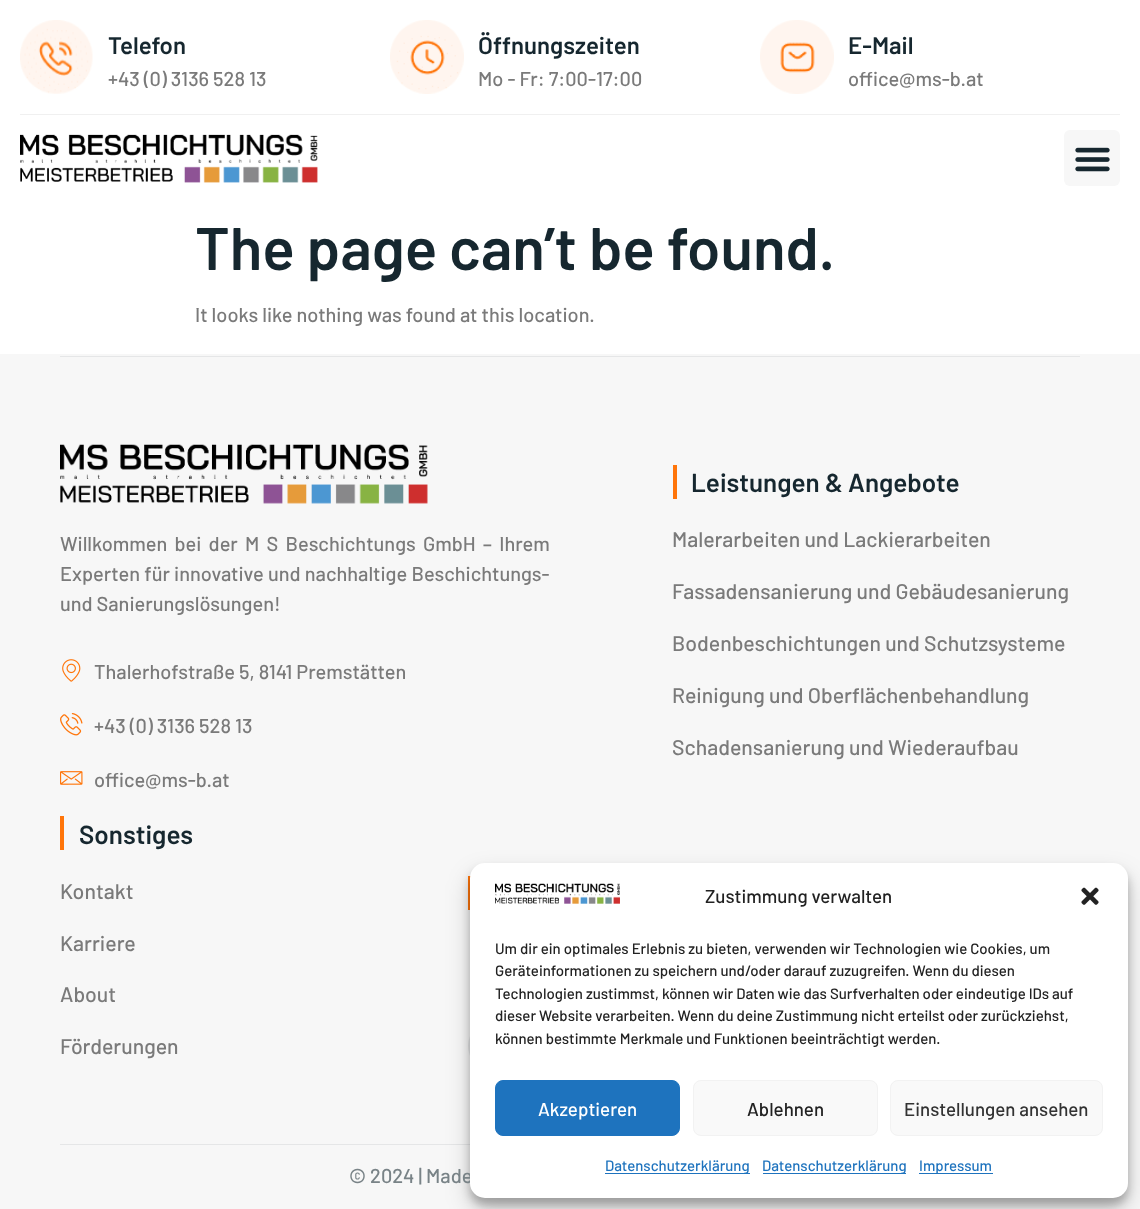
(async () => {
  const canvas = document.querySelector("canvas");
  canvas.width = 1140;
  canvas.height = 1209;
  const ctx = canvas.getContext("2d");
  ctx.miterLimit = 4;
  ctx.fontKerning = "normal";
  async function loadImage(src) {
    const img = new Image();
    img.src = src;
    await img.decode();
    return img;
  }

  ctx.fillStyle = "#ffffff";
  ctx.fillRect(0, 0, 1140, 1209);
  ctx.drawImage(await loadImage("img/1.png"), 20, 20, 73, 74);
  ctx.drawImage(await loadImage("img/2.png"), 390, 20, 74, 74);
  ctx.drawImage(await loadImage("img/3.png"), 760, 20, 74, 74);
  ctx.fillStyle = "#f0f0f0";
  ctx.fillRect(20, 114, 1100, 1);
  ctx.drawImage(await loadImage("img/4.png"), 20, 134, 298, 49);
  ctx.fillStyle = "#f7f7f7";
  ctx.beginPath();
  ctx.roundRect(1064, 130, 56, 56, 6);
  ctx.fill();
  ctx.drawImage(await loadImage("img/5.png"), 1075, 147, 35, 25);
  ctx.fillRect(0, 354, 1140, 855);
  ctx.fillStyle = "#e5e6e7";
  ctx.fillRect(60, 356, 1020, 1);
  ctx.drawImage(await loadImage("img/6.png"), 60, 444, 368, 60);
  ctx.drawImage(await loadImage("img/7.png"), 62, 659, 19, 23);
  ctx.drawImage(await loadImage("img/8.png"), 60, 713, 23, 23);
  ctx.drawImage(await loadImage("img/9.png"), 60, 771, 23, 14);
  for (const [x, y, w, h, color] of [
    [673, 465, 4, 34, "#ff750a"],
    [60, 816, 4, 34, "#ff750a"],
    [468, 876, 3, 34, "#ff750a"],
  ]) {
    ctx.fillStyle = color;
    ctx.fillRect(x, y, w, h);
  }
  ctx.fillStyle = "#e5e6e7";
  ctx.beginPath();
  ctx.roundRect(468, 1019, 55, 54, 27);
  ctx.fill();
  ctx.fillRect(60, 1144, 410, 1);
  ctx.fillStyle = "rgba(0, 0, 0, 0.23)";
  ctx.filter = "blur(4px)";
  ctx.beginPath();
  ctx.roundRect(470, 870, 658, 335, 15);
  ctx.fill();
  ctx.filter = "none";
  ctx.fillStyle = "rgba(0, 0, 0, 0.19)";
  ctx.filter = "blur(12.5px)";
  ctx.beginPath();
  ctx.roundRect(470, 875, 658, 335, 15);
  ctx.fill();
  ctx.filter = "none";
  ctx.font = "600 24px Barlow";
  ctx.fillStyle = "#16272f";
  ctx.fillText("Telefon", 108, 54);
  ctx.font = "500 20px Barlow";
  ctx.fillStyle = "#7a7a7a";
  ctx.fillText("+43 (0) 3136 528 13", 108, 86);
  ctx.font = "600 24px Barlow";
  ctx.fillStyle = "#16272f";
  ctx.fillText("Öffnungszeiten", 478, 54);
  ctx.font = "500 20px Barlow";
  ctx.fillStyle = "#7a7a7a";
  ctx.fillText("Mo - Fr: 7:00-17:00", 478, 86);
  ctx.font = "600 24px Barlow";
  ctx.fillStyle = "#16272f";
  ctx.fillText("E-Mail", 848, 54);
  ctx.font = "500 20px Barlow";
  ctx.fillStyle = "#7a7a7a";
  ctx.fillText("office@ms-b.at", 848, 86);
  ctx.font = "600 60px Barlow";
  ctx.fillStyle = "#16272f";
  ctx.fillText("The page can’t be found.", 195, 270);
  ctx.font = "500 20px Barlow";
  ctx.fillStyle = "#7a7a7a";
  ctx.fillText("It looks like nothing was found at this location.", 195, 322);
  ctx.wordSpacing = "3.25px";
  ctx.fillText("Willkommen bei der M S Beschichtungs GmbH – Ihrem", 60, 551);
  ctx.wordSpacing = "0.25px";
  ctx.fillText("Experten für innovative und nachhaltige Beschichtungs-", 60, 581);
  ctx.wordSpacing = "0px";
  for (const [text, x, y] of [
    ["und Sanierungslösungen!", 60, 611],
    ["Thalerhofstraße 5, 8141 Premstätten", 94, 679],
    ["+43 (0) 3136 528 13", 94, 733],
    ["office@ms-b.at", 94, 787],
  ]) {
    ctx.fillText(text, x, y);
  }
  ctx.font = "600 26px Barlow";
  ctx.fillStyle = "#16272f";
  ctx.fillText("Leistungen & Angebote", 691, 492);
  ctx.font = "500 21.25px Barlow";
  ctx.fillStyle = "#7a7a7a";
  for (const [text, x, y] of [
    ["Malerarbeiten und Lackierarbeiten", 672, 547],
    ["Fassadensanierung und Gebäudesanierung", 672, 599],
    ["Bodenbeschichtungen und Schutzsysteme", 672, 651],
    ["Reinigung und Oberflächenbehandlung", 672, 703],
    ["Schadensanierung und Wiederaufbau", 672, 755],
  ]) {
    ctx.fillText(text, x, y);
  }
  ctx.font = "600 26px Barlow";
  ctx.fillStyle = "#16272f";
  ctx.fillText("Sonstiges", 79, 844);
  ctx.font = "500 21.25px Barlow";
  ctx.fillStyle = "#7a7a7a";
  for (const [text, x, y] of [
    ["Kontakt", 60, 899],
    ["Karriere", 60, 951],
    ["About", 60, 1002],
    ["Förderungen", 60, 1054],
  ]) {
    ctx.fillText(text, x, y);
  }
  ctx.font = "500 20px Barlow";
  ctx.fillStyle = "#798387";
  ctx.fillText("© 2024 | Made", 349, 1183);
  ctx.fillStyle = "#ffffff";
  ctx.beginPath();
  ctx.roundRect(470, 863, 658, 335, 15);
  ctx.fill();
  ctx.drawImage(await loadImage("img/10.png"), 495, 883, 125, 21);
  ctx.font = "500 18.75px Barlow";
  ctx.fillStyle = "#222222";
  ctx.fillText("Zustimmung verwalten", 705, 903);
  ctx.drawImage(await loadImage("img/11.png"), 1081, 887, 18, 18);
  ctx.font = "500 15px Barlow";
  for (const [text, x, y] of [
    ["Um dir ein optimales Erlebnis zu bieten, verwenden wir Technologien wie Cookies, um", 495, 954],
    ["Geräteinformationen zu speichern und/oder darauf zuzugreifen. Wenn du diesen", 495, 976],
    ["Technologien zustimmst, können wir Daten wie das Surfverhalten oder eindeutige IDs auf", 495, 999],
    ["dieser Website verarbeiten. Wenn du deine Zustimmung nicht erteilst oder zurückziehst,", 495, 1021],
    ["können bestimmte Merkmale und Funktionen beeinträchtigt werden.", 495, 1044],
  ]) {
    ctx.fillText(text, x, y);
  }
  ctx.fillStyle = "#1e73be";
  ctx.beginPath();
  ctx.roundRect(495.5, 1080.5, 184, 55, 7.5);
  ctx.fill();
  ctx.strokeStyle = "#1e73be";
  ctx.stroke();
  ctx.font = "500 18.75px Barlow";
  ctx.fillStyle = "#ffffff";
  ctx.fillText("Akzeptieren", 538, 1116);
  ctx.fillStyle = "#f9f9f9";
  ctx.beginPath();
  ctx.roundRect(693.5, 1080.5, 184, 55, 7.5);
  ctx.fill();
  ctx.strokeStyle = "#f2f2f2";
  ctx.stroke();
  ctx.fillStyle = "#222222";
  ctx.fillText("Ablehnen", 747, 1116);
  ctx.fillStyle = "#f9f9f9";
  ctx.beginPath();
  ctx.roundRect(890.5, 1080.5, 212, 55, 7.5);
  ctx.fill();
  ctx.stroke();
  ctx.fillStyle = "#333333";
  ctx.fillText("Einstellungen ansehen", 904, 1116);
  ctx.fillStyle = "#1e73be";
  ctx.fillRect(605, 1173, 145, 1);
  ctx.font = "500 15px Barlow";
  ctx.fillText("Datenschutzerklärung", 605, 1171);
  ctx.fillRect(763, 1173, 143, 1);
  ctx.fillText("Datenschutzerklärung", 762, 1171);
  ctx.fillRect(919, 1173, 74, 1);
  ctx.fillText("Impressum", 919, 1171);
})();
